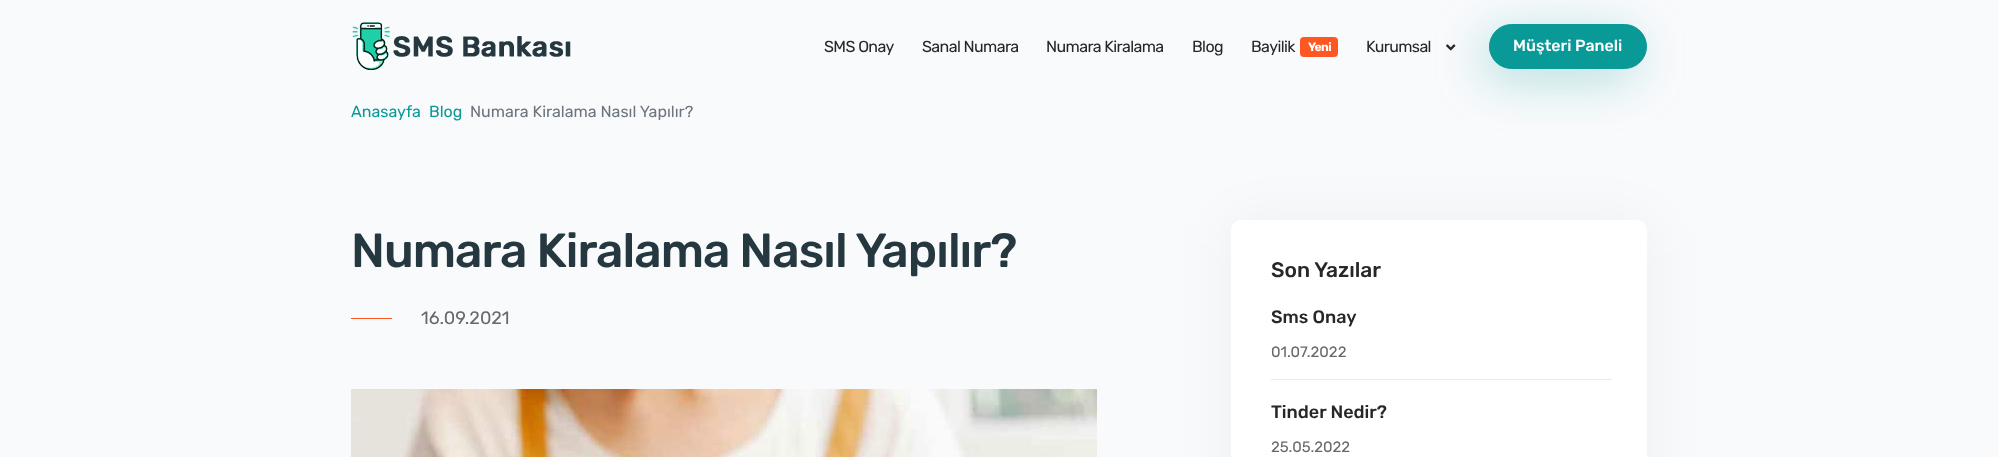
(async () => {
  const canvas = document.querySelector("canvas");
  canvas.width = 1998;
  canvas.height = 457;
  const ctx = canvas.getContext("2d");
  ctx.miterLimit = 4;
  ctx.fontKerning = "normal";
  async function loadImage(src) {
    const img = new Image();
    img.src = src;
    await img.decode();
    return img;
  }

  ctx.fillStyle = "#f9fafc";
  ctx.fillRect(0, 0, 1998, 457);
  ctx.drawImage(await loadImage("img/1.png"), 352, 22, 219, 48);
  ctx.fillStyle = "#ff5722";
  ctx.beginPath();
  ctx.roundRect(1300, 37, 38, 20, 4);
  ctx.fill();
  ctx.fillStyle = "rgba(9, 154, 151, 0.3)";
  ctx.filter = "blur(25px)";
  ctx.beginPath();
  ctx.roundRect(1481, 34, 158, 45, 22.5);
  ctx.fill();
  ctx.filter = "none";
  ctx.drawImage(await loadImage("img/2.png"), 1446, 44, 10, 7);
  ctx.fillStyle = "#099a97";
  ctx.beginPath();
  ctx.roundRect(1489.5, 24.5, 157, 44, 22);
  ctx.fill();
  ctx.strokeStyle = "#099a97";
  ctx.stroke();
  ctx.fillStyle = "#ff5722";
  ctx.fillRect(351, 318, 41, 1);
  ctx.drawImage(await loadImage("img/3.png"), 351, 389, 746, 68);
  ctx.fillStyle = "rgba(22, 22, 22, 0.05)";
  ctx.filter = "blur(28px)";
  ctx.beginPath();
  ctx.roundRect(1231, 224, 416, 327, 10);
  ctx.fill();
  ctx.filter = "none";
  ctx.fillStyle = "#ffffff";
  ctx.beginPath();
  ctx.roundRect(1231, 220, 416, 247, 10);
  ctx.fill();
  ctx.fillStyle = "#e9e9ea";
  ctx.fillRect(1271, 379, 341, 1);
  ctx.letterSpacing = "-0.6px";
  ctx.font = "16px Rubik";
  ctx.fillStyle = "#262729";
  for (const [text, x, y] of [
    ["SMS Onay", 824, 52],
    ["Sanal Numara", 922, 52],
    ["Numara Kiralama", 1046, 52],
    ["Blog", 1192, 52],
    ["Bayilik", 1251, 52],
  ]) {
    ctx.fillText(text, x, y);
  }
  ctx.font = "bold 12px Rubik";
  ctx.fillStyle = "#ffffff";
  ctx.fillText("Yeni", 1308, 51);
  ctx.font = "16px Rubik";
  ctx.fillStyle = "#262729";
  ctx.fillText("Kurumsal", 1366, 52);
  ctx.letterSpacing = "0px";
  ctx.font = "500 16px Rubik";
  ctx.fillStyle = "#ffffff";
  ctx.fillText("Müşteri Paneli", 1513, 51);
  ctx.font = "16px Rubik";
  ctx.fillStyle = "#099a97";
  ctx.fillText("Anasayfa", 351, 117);
  ctx.fillText("Blog", 429, 117);
  ctx.fillStyle = "#6c757d";
  ctx.fillText("Numara Kiralama Nasıl Yapılır?", 470, 117);
  ctx.letterSpacing = "-1px";
  ctx.font = "500 48px Rubik";
  ctx.fillStyle = "#25373f";
  ctx.fillText("Numara Kiralama Nasıl Yapılır?", 351, 267);
  ctx.letterSpacing = "0px";
  ctx.font = "18px Rubik";
  ctx.fillStyle = "#676869";
  ctx.fillText("16.09.2021", 421, 324);
  ctx.font = "500 21px Rubik";
  ctx.fillStyle = "#262729";
  ctx.fillText("Son Yazılar", 1271, 277);
  ctx.font = "500 18px Rubik";
  ctx.fillText("Sms Onay", 1271, 323);
  ctx.font = "15px Rubik";
  ctx.fillStyle = "#676869";
  ctx.fillText("01.07.2022", 1271, 357);
  ctx.font = "500 18px Rubik";
  ctx.fillStyle = "#262729";
  ctx.fillText("Tinder Nedir?", 1271, 418);
  ctx.font = "15px Rubik";
  ctx.fillStyle = "#676869";
  ctx.fillText("25.05.2022", 1271, 452);
})();
